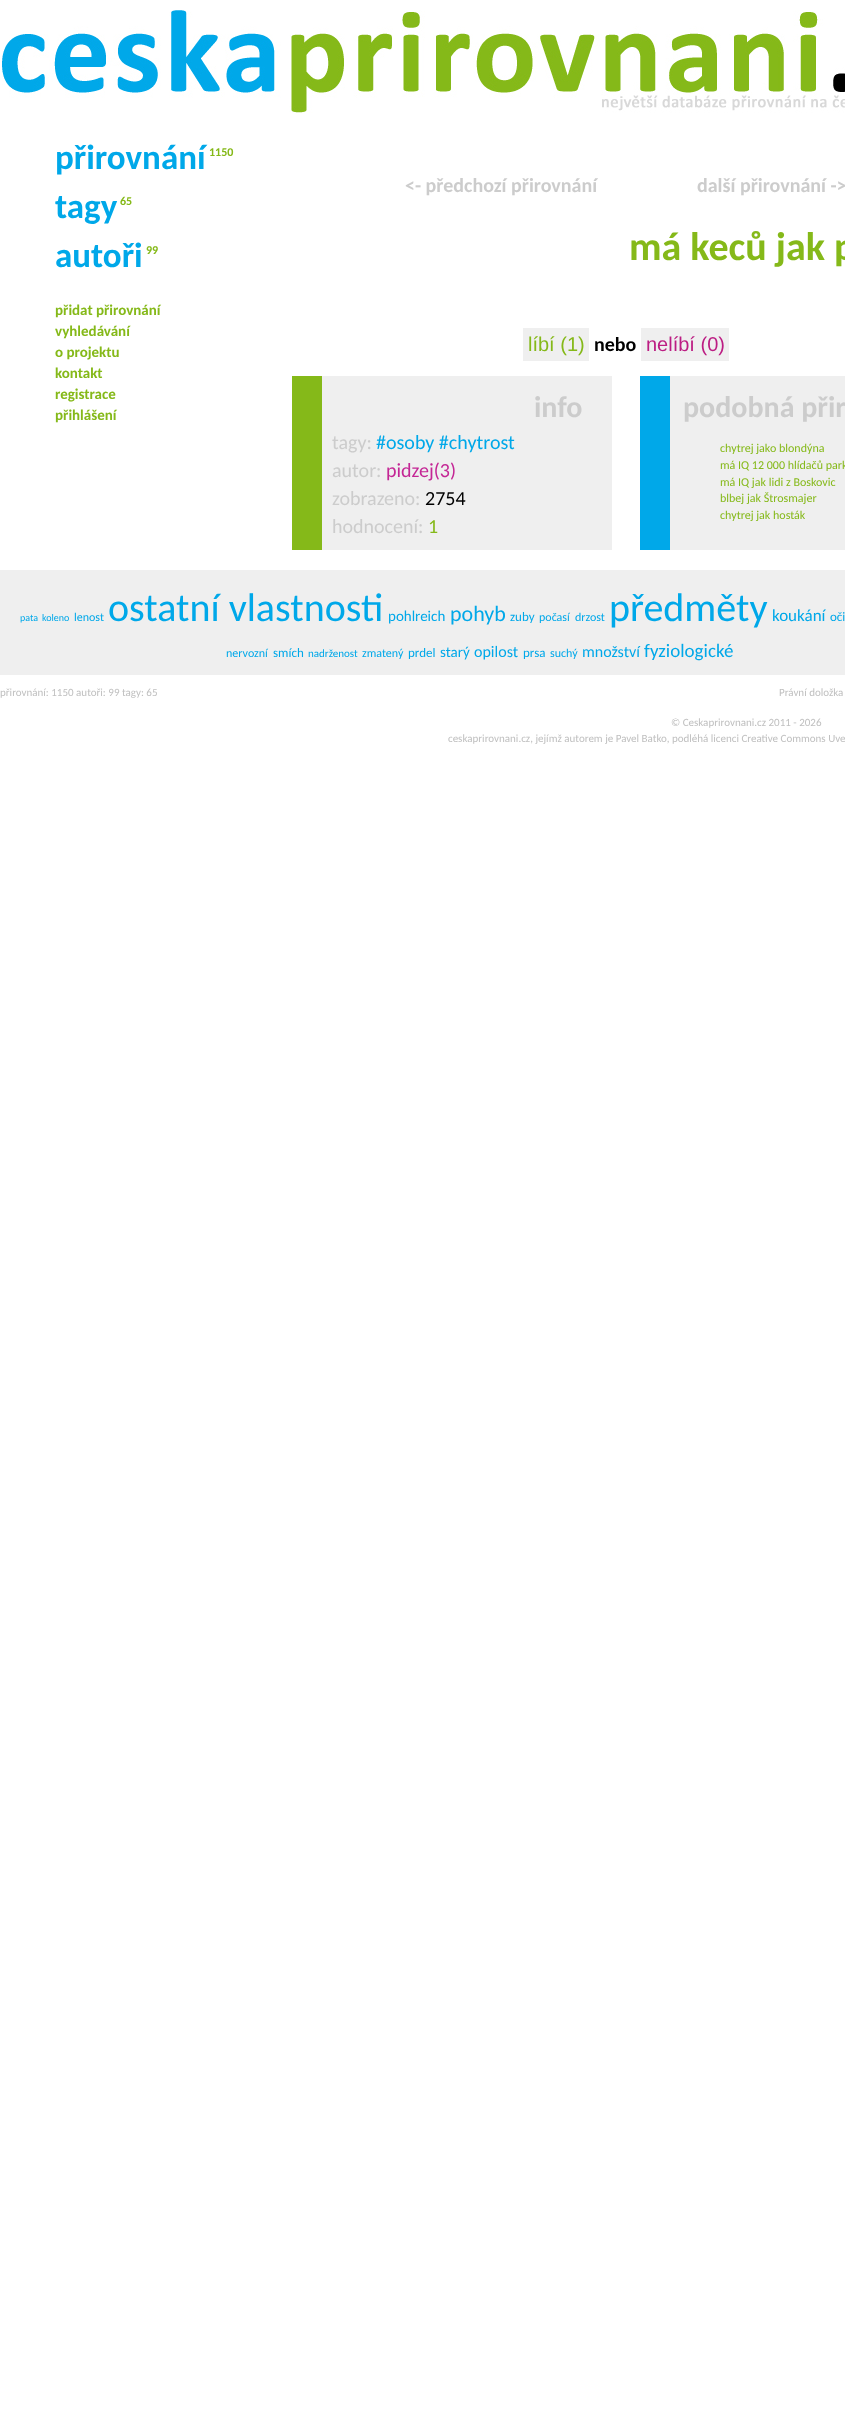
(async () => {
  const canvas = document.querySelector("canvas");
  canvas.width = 845;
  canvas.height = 2430;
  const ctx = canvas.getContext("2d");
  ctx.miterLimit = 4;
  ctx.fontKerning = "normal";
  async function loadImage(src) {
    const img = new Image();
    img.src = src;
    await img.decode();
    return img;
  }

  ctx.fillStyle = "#ffffff";
  ctx.fillRect(0, 0, 845, 2430);
  ctx.drawImage(await loadImage("img/1.png"), 2, 10, 843, 103);
  for (const [x, y, w, h, color] of [
    [523, 328, 66, 33, "#efefef"],
    [641, 328, 88, 33, "#efefef"],
    [322, 376, 290, 174, "#efefef"],
    [292, 376, 30, 174, "#85b919"],
    [670, 376, 175, 174, "#efefef"],
    [640, 376, 30, 174, "#00a8e9"],
    [0, 570, 845, 105, "#efefef"],
  ]) {
    ctx.fillStyle = color;
    ctx.fillRect(x, y, w, h);
  }
  ctx.font = "bold 35px Carlito";
  ctx.fillStyle = "#00a8e9";
  ctx.fillText("přirovnání", 55, 169);
  ctx.font = "bold 12px Carlito";
  ctx.fillStyle = "#85b919";
  ctx.fillText("1150", 209, 156);
  ctx.font = "bold 35px Carlito";
  ctx.fillStyle = "#00a8e9";
  ctx.fillText("tagy", 55, 218);
  ctx.font = "bold 12px Carlito";
  ctx.fillStyle = "#85b919";
  ctx.fillText("65", 120, 205);
  ctx.font = "bold 35px Carlito";
  ctx.fillStyle = "#00a8e9";
  ctx.fillText("autoři", 55, 267);
  ctx.font = "bold 12px Carlito";
  ctx.fillStyle = "#85b919";
  ctx.fillText("99", 146, 254);
  ctx.font = "bold 15px Carlito";
  for (const [text, x, y] of [
    ["přidat přirovnání", 55, 315],
    ["vyhledávání", 55, 336],
    ["o projektu", 55, 357],
    ["kontakt", 55, 378],
    ["registrace", 55, 399],
    ["přihlášení", 55, 420],
  ]) {
    ctx.fillText(text, x, y);
  }
  ctx.font = "bold 20px Carlito";
  ctx.fillStyle = "#cccccc";
  ctx.fillText("<- předchozí přirovnání", 405, 192);
  ctx.fillText("další přirovnání ->", 697, 192);
  ctx.font = "bold 40px Carlito";
  ctx.fillStyle = "#85b919";
  ctx.fillText("má keců jak p", 629, 260);
  ctx.font = "20px Liberation Sans";
  ctx.fillText("líbí (1)", 528, 351);
  ctx.font = "bold 20px Carlito";
  ctx.fillStyle = "#000000";
  ctx.fillText("nebo", 594, 351);
  ctx.font = "20px Liberation Sans";
  ctx.fillStyle = "#bc1d83";
  ctx.fillText("nelíbí (0)", 646, 351);
  ctx.font = "bold 30px Carlito";
  ctx.fillStyle = "#cccccc";
  ctx.fillText("info", 534, 417);
  ctx.font = "20px Carlito";
  ctx.fillText("tagy:", 332, 449);
  ctx.fillStyle = "#00a8e9";
  ctx.fillText("#osoby #chytrost", 376, 449);
  ctx.fillStyle = "#cccccc";
  ctx.fillText("autor:", 332, 477);
  ctx.fillStyle = "#c42695";
  ctx.fillText("pidzej(3)", 386, 477);
  ctx.fillStyle = "#cccccc";
  ctx.fillText("zobrazeno:", 332, 505);
  ctx.fillStyle = "#000000";
  ctx.fillText("2754", 425, 505);
  ctx.fillStyle = "#cccccc";
  ctx.fillText("hodnocení:", 332, 533);
  ctx.fillStyle = "#85b919";
  ctx.fillText("1", 428, 533);
  ctx.font = "bold 30px Carlito";
  ctx.fillStyle = "#cccccc";
  ctx.fillText("podobná přir", 683, 417);
  ctx.font = "12px Carlito";
  ctx.fillStyle = "#85b919";
  for (const [text, x, y] of [
    ["chytrej jako blondýna", 720, 452],
    ["má IQ 12 000 hlídačů park", 720, 469],
    ["má IQ jak lidi z Boskovic", 720, 486],
    ["blbej jak Štrosmajer", 720, 502],
    ["chytrej jak hosták", 720, 519],
  ]) {
    ctx.fillText(text, x, y);
  }
  ctx.font = "10px Carlito";
  ctx.fillStyle = "#00a8e9";
  ctx.fillText("pata", 20, 621);
  ctx.fillText("koleno", 42, 621);
  ctx.font = "12px Carlito";
  ctx.fillText("lenost", 74, 621);
  ctx.font = "40px Carlito";
  ctx.fillText("ostatní vlastnosti", 108, 621);
  ctx.font = "15px Carlito";
  ctx.fillText("pohlreich", 388, 621);
  ctx.font = "22px Carlito";
  ctx.fillText("pohyb", 450, 621);
  ctx.font = "13px Carlito";
  ctx.fillText("zuby", 510, 621);
  ctx.font = "12px Carlito";
  ctx.fillText("počasí", 539, 621);
  ctx.fillText("drzost", 575, 621);
  ctx.font = "40px Carlito";
  ctx.fillText("předměty", 609, 621);
  ctx.font = "17px Carlito";
  ctx.fillText("koukání", 772, 621);
  ctx.font = "13px Carlito";
  ctx.fillText("oči", 830, 621);
  ctx.font = "12px Carlito";
  ctx.fillText("nervozní", 226, 657);
  ctx.font = "13px Carlito";
  ctx.fillText("smích", 273, 657);
  ctx.font = "11px Carlito";
  ctx.fillText("nadrženost", 308, 657);
  ctx.font = "12px Carlito";
  ctx.fillText("zmatený", 362, 657);
  ctx.font = "13px Carlito";
  ctx.fillText("prdel", 408, 657);
  ctx.font = "15px Carlito";
  ctx.fillText("starý", 440, 657);
  ctx.font = "16px Carlito";
  ctx.fillText("opilost", 474, 657);
  ctx.font = "13px Carlito";
  ctx.fillText("prsa", 523, 657);
  ctx.font = "12px Carlito";
  ctx.fillText("suchý", 550, 657);
  ctx.font = "16px Carlito";
  ctx.fillText("množství", 582, 657);
  ctx.font = "19px Carlito";
  ctx.fillText("fyziologické", 644, 657);
  ctx.font = "11px Carlito";
  ctx.fillStyle = "#c0c0c0";
  for (const [text, x, y] of [
    ["přirovnání: 1150 autoři: 99 tagy: 65", 0, 696],
    ["Právní doložka", 779, 696],
    ["© Ceskaprirovnani.cz 2011 - 2026", 671, 726],
    ["ceskaprirovnani.cz, jejímž autorem je Pavel Batko, podléhá licenci Creative Commons Uve", 448, 742],
  ]) {
    ctx.fillText(text, x, y);
  }
})();
